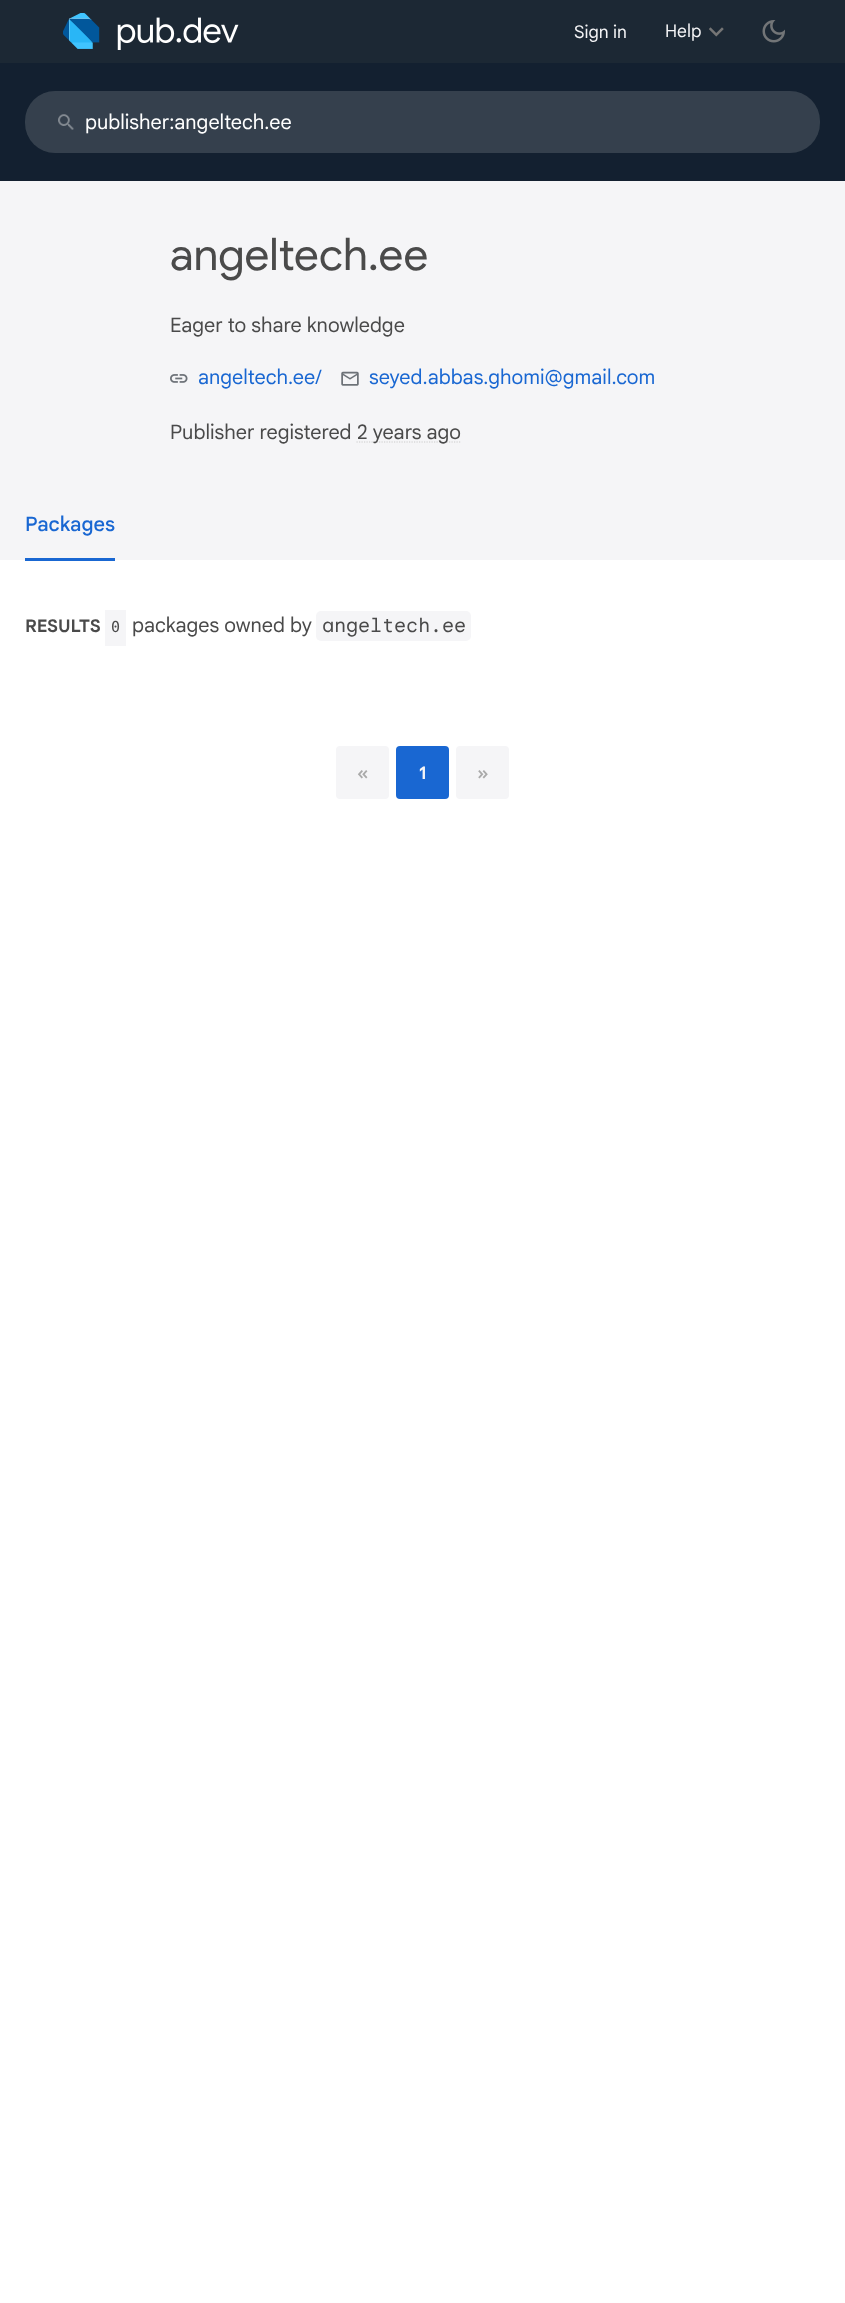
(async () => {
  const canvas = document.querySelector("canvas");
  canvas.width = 845;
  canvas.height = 2303;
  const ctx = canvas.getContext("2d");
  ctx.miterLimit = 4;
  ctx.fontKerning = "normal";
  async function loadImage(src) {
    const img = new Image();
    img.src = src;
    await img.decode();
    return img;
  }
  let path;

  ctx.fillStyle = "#ffffff";
  ctx.fillRect(0, 0, 845, 2303);
  ctx.fillStyle = "#1c2834";
  ctx.fillRect(0, 0, 845, 63);
  ctx.drawImage(await loadImage("img/1.png"), 63, 13, 176, 37);
  ctx.drawImage(await loadImage("img/2.png"), 709, 27, 15, 10);
  ctx.drawImage(await loadImage("img/3.png"), 762, 20, 23, 23);
  ctx.fillStyle = "#132030";
  ctx.fillRect(0, 63, 845, 118);
  ctx.fillStyle = "#35404d";
  ctx.beginPath();
  ctx.roundRect(25, 91, 795, 62, 30);
  ctx.fill();
  ctx.drawImage(await loadImage("img/4.png"), 58, 114, 16, 16);
  ctx.fillStyle = "#f5f5f7";
  ctx.fillRect(0, 181, 845, 379);
  ctx.drawImage(await loadImage("img/5.png"), 170, 374, 18, 9);
  ctx.drawImage(await loadImage("img/6.png"), 341, 371, 18, 15);
  path = new Path2D("M356.5 442H460.5");
  ctx.strokeStyle = "#cccccc";
  ctx.lineWidth = 1.2;
  ctx.setLineDash([1.25, 1.25]);
  ctx.stroke(path);
  ctx.fillStyle = "#1967d2";
  ctx.fillRect(25, 558, 90, 3);
  ctx.fillStyle = "#f5f5f7";
  ctx.fillRect(105, 610, 21, 36);
  ctx.beginPath();
  ctx.roundRect(316, 611, 155, 30, 5);
  ctx.fill();
  ctx.beginPath();
  ctx.roundRect(336, 746, 53, 53, 4);
  ctx.fill();
  ctx.fillStyle = "#1967d2";
  ctx.beginPath();
  ctx.roundRect(396, 746, 53, 53, 4);
  ctx.fill();
  ctx.fillStyle = "#f5f5f7";
  ctx.beginPath();
  ctx.roundRect(456, 746, 53, 53, 4);
  ctx.fill();
  ctx.font = "17.5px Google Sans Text";
  ctx.fillText("Sign in", 574, 38);
  ctx.fillText("Help", 665, 37);
  ctx.font = "20px Google Sans Text";
  ctx.fillStyle = "#ffffff";
  ctx.fillText("publisher:angeltech.ee", 85, 129);
  ctx.font = "45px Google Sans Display";
  ctx.fillStyle = "#4a4a4a";
  ctx.fillText("angeltech.ee", 170, 270);
  ctx.font = "20px Google Sans Text";
  ctx.fillText("Eager to share knowledge", 170, 332);
  ctx.fillStyle = "#1967d2";
  ctx.fillText("angeltech.ee/", 198, 384);
  ctx.fillText("seyed.abbas.ghomi@gmail.com", 369, 384);
  ctx.fillStyle = "#4a4a4a";
  ctx.fillText("Publisher registered", 170, 439);
  ctx.fillText("2 years ago", 357, 439);
  ctx.font = "500 20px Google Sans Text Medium";
  ctx.fillStyle = "#1967d2";
  ctx.fillText("Packages", 25, 531);
  ctx.font = "bold 17.5px Google Sans Text";
  ctx.fillStyle = "#4a4a4a";
  ctx.fillText("RESULTS", 25, 632);
  ctx.font = "15px DejaVu Sans Mono";
  ctx.fillText("0", 111, 632);
  ctx.font = "20px Google Sans Text";
  ctx.fillText("packages owned by", 132, 632);
  ctx.font = "20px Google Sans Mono";
  ctx.fillText("angeltech.ee", 322, 632);
  ctx.font = "bold 17.5px Google Sans Text";
  ctx.fillStyle = "#aaaaaa";
  ctx.fillText("«", 357, 779);
  ctx.fillStyle = "#f5f5f7";
  ctx.fillText("1", 419, 779);
  ctx.fillStyle = "#aaaaaa";
  ctx.fillText("»", 477, 779);
})();
